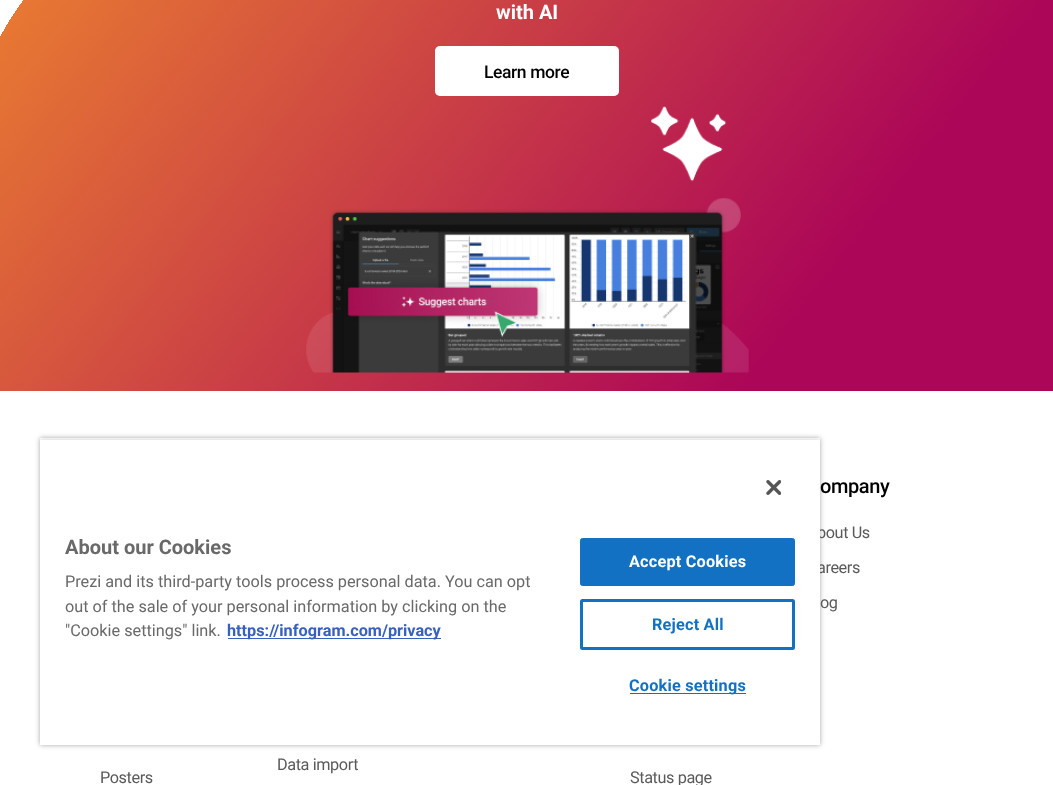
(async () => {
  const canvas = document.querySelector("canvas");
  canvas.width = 1053;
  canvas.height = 785;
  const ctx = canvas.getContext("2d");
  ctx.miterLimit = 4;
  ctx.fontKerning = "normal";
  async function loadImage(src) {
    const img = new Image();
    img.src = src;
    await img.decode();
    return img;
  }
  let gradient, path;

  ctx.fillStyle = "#ffffff";
  ctx.fillRect(0, 0, 1053, 785);
  gradient = ctx.createLinearGradient(-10, -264, 968, 501);
  gradient.addColorStop(0, "#f5922a");
  gradient.addColorStop(0.8, "#ac0658");
  ctx.fillStyle = gradient;
  ctx.fillRect(0, 0, 1053, 391);
  gradient = ctx.createRadialGradient(250, 170, 0, 250, 170, 354);
  gradient.addColorStop(0, "rgba(0, 0, 0, 0)");
  gradient.addColorStop(0.8, "rgba(255, 255, 255, 0)");
  gradient.addColorStop(0.8, "#ffffff");
  gradient.addColorStop(1, "#ffffff");
  ctx.fillStyle = gradient;
  ctx.fillRect(0, 0, 23, 36);
  ctx.fillStyle = "#ffffff";
  ctx.beginPath();
  ctx.roundRect(435, 46, 184, 50, 5);
  ctx.fill();
  ctx.beginPath();
  ctx.roundRect(436.5, 47.5, 181, 47, 3.5);
  ctx.strokeStyle = "rgba(255, 255, 255, 0.4)";
  ctx.lineWidth = 3;
  ctx.stroke();
  ctx.drawImage(await loadImage("img/1.png"), 651, 106, 76, 76);
  ctx.drawImage(await loadImage("img/2.png"), 306, 198, 443, 175);
  ctx.save();
  path = new Path2D("M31 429H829V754H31ZM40 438H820V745H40Z");
  ctx.clip(path, "evenodd");
  ctx.fillStyle = "rgba(0, 0, 0, 0.35)";
  ctx.filter = "blur(2.5px)";
  ctx.beginPath();
  ctx.rect(40, 438, 780, 307);
  ctx.fill();
  ctx.filter = "none";
  ctx.restore();
  ctx.save();
  ctx.beginPath();
  ctx.rect(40, 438, 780, 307);
  ctx.clip();
  ctx.fillStyle = "rgba(0, 0, 0, 0.2)";
  ctx.filter = "blur(2.5px)";
  ctx.beginPath();
  ctx.rect(40, 440, 780, 305);
  ctx.fill();
  ctx.filter = "none";
  ctx.restore();
  ctx.font = "bold 20px Roboto";
  ctx.fillText("with AI", 496, 19);
  ctx.letterSpacing = "-0.4px";
  ctx.font = "500 17.5px Roboto";
  ctx.fillStyle = "#000000";
  ctx.fillText("Learn more", 484, 78);
  ctx.font = "500 20px Roboto";
  ctx.fillText("ompany", 820, 493);
  ctx.font = "16.25px Roboto";
  ctx.fillStyle = "#5a5a5a";
  for (const [text, x, y] of [
    ["bout Us", 817, 538],
    ["areers", 817, 573],
    ["og", 820, 608],
    ["Data import", 277, 770],
    ["Posters", 100, 783],
    ["Status page", 630, 783],
  ]) {
    ctx.fillText(text, x, y);
  }
  ctx.fillStyle = "#ffffff";
  ctx.fillRect(40, 440, 780, 305);
  ctx.drawImage(await loadImage("img/3.png"), 766, 480, 15, 15);
  ctx.letterSpacing = "0px";
  ctx.font = "bold 20px Roboto";
  ctx.fillStyle = "#696969";
  ctx.fillText("About our Cookies", 65, 554);
  ctx.font = "16.25px Roboto";
  for (const [text, x, y] of [
    ["Prezi and its third-party tools process personal data. You can opt", 65, 587],
    ["out of the sale of your personal information by clicking on the", 65, 612],
    ["\"Cookie settings\" link.", 65, 636],
  ]) {
    ctx.fillText(text, x, y);
  }
  ctx.fillStyle = "#3860be";
  ctx.fillRect(228, 638, 213, 1);
  ctx.font = "bold 16.25px Roboto";
  ctx.fillText("https://infogram.com/privacy", 227, 636);
  ctx.fillStyle = "#1371c3";
  ctx.beginPath();
  ctx.roundRect(580.5, 538.5, 214, 47, 2);
  ctx.fill();
  ctx.strokeStyle = "#1371c3";
  ctx.lineWidth = 1;
  ctx.stroke();
  ctx.letterSpacing = "0.2px";
  ctx.fillStyle = "#ffffff";
  ctx.fillText("Accept Cookies", 629, 567);
  ctx.beginPath();
  ctx.roundRect(581.5, 600.5, 212, 48, 1);
  ctx.lineWidth = 3;
  ctx.stroke();
  ctx.fillStyle = "#1371c3";
  ctx.fillText("Reject All", 652, 630);
  ctx.fillRect(630, 693, 116, 1);
  ctx.fillText("Cookie settings", 629, 691);
})();
